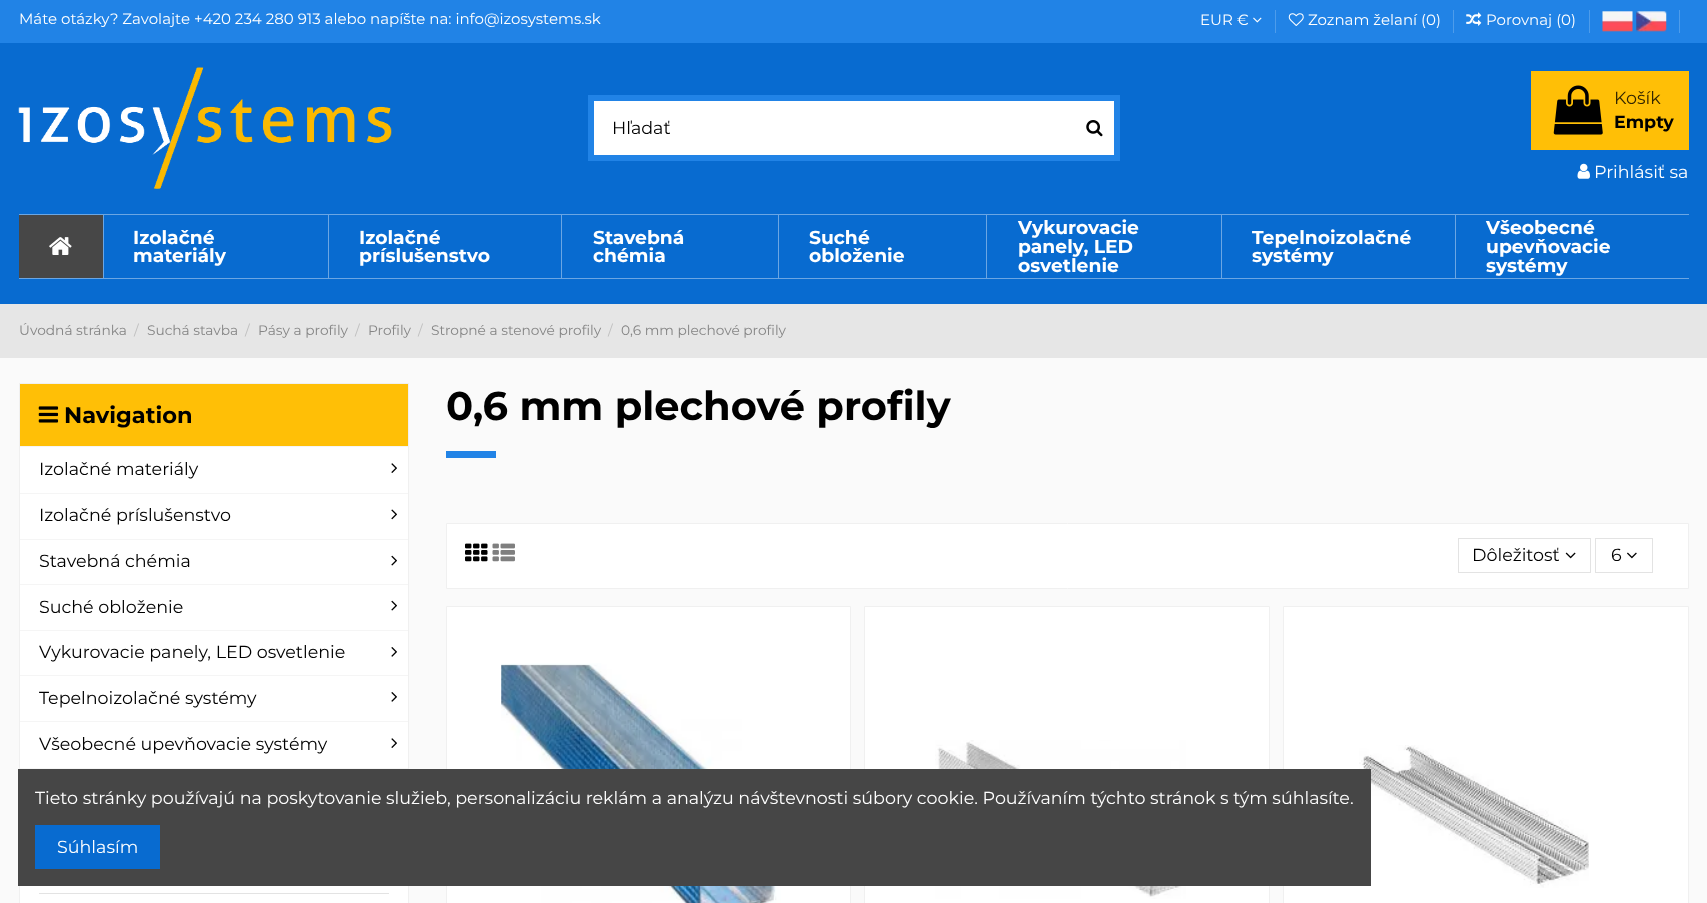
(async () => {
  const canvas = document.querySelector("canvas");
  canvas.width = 1707;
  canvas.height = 903;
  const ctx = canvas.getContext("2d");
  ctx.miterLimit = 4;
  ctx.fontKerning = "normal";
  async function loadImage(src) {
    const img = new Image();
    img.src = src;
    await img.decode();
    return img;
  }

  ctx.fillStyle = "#fafafa";
  ctx.fillRect(0, 0, 1707, 903);
  ctx.fillStyle = "#086bd0";
  ctx.fillRect(0, 43, 1707, 261);
  ctx.fillStyle = "#2183e6";
  ctx.fillRect(0, 0, 1707, 43);
  ctx.drawImage(await loadImage("img/1.png"), 1253, 17, 9, 6);
  ctx.fillStyle = "#4d9ceb";
  ctx.fillRect(1275, 10, 1, 23);
  ctx.drawImage(await loadImage("img/2.png"), 1288, 13, 16, 13);
  ctx.fillRect(1453, 10, 1, 23);
  ctx.drawImage(await loadImage("img/3.png"), 1466, 12, 16, 14);
  ctx.fillRect(1589, 10, 1, 23);
  ctx.drawImage(await loadImage("img/4.png"), 1602, 11, 31, 21);
  ctx.drawImage(await loadImage("img/5.png"), 1636, 11, 31, 21);
  ctx.fillRect(1679, 10, 1, 23);
  ctx.drawImage(await loadImage("img/6.png"), 18, 67, 374, 122);
  ctx.fillStyle = "#ffffff";
  ctx.beginPath();
  ctx.rect(591, 98, 526, 60);
  ctx.fill();
  ctx.strokeStyle = "#2183e6";
  ctx.lineWidth = 6;
  ctx.stroke();
  ctx.drawImage(await loadImage("img/7.png"), 1086, 120, 17, 17);
  ctx.fillStyle = "#ffbf06";
  ctx.fillRect(1531, 71, 158, 79);
  ctx.drawImage(await loadImage("img/8.png"), 1553, 85, 50, 50);
  ctx.drawImage(await loadImage("img/9.png"), 1577, 163, 13, 16);
  for (const [x, y, w, h, color] of [
    [19, 214, 1670, 1, "#6ba6e3"],
    [19, 278, 1670, 1, "#6ba6e3"],
    [19, 215, 84, 63, "#474747"],
  ]) {
    ctx.fillStyle = color;
    ctx.fillRect(x, y, w, h);
  }
  ctx.drawImage(await loadImage("img/10.png"), 49, 237, 23, 18);
  for (const [x, y, w, h, color] of [
    [103, 215, 1, 63, "#6ba6e3"],
    [328, 215, 1, 63, "#6ba6e3"],
    [561, 215, 1, 63, "#6ba6e3"],
    [778, 215, 1, 63, "#6ba6e3"],
    [986, 215, 1, 63, "#6ba6e3"],
    [1221, 215, 1, 63, "#6ba6e3"],
    [1455, 215, 1, 63, "#6ba6e3"],
    [0, 304, 1707, 54, "#e6e6e6"],
    [20, 447, 388, 321, "#ffffff"],
  ]) {
    ctx.fillStyle = color;
    ctx.fillRect(x, y, w, h);
  }
  ctx.strokeStyle = "#f0f0f0";
  ctx.lineWidth = 1;
  ctx.strokeRect(19.5, 383.5, 389, 430);
  ctx.fillStyle = "#ffbf06";
  ctx.fillRect(20, 384, 388, 62);
  ctx.drawImage(await loadImage("img/11.png"), 38, 406, 21, 17);
  ctx.fillStyle = "#f5f5f5";
  ctx.fillRect(20, 446, 388, 1);
  ctx.drawImage(await loadImage("img/12.png"), 391, 463, 6, 10);
  ctx.fillRect(20, 493, 388, 1);
  ctx.drawImage(await loadImage("img/13.png"), 391, 509, 6, 11);
  ctx.fillRect(20, 539, 388, 1);
  ctx.drawImage(await loadImage("img/14.png"), 391, 555, 6, 11);
  ctx.fillRect(20, 584, 388, 1);
  ctx.drawImage(await loadImage("img/14.png"), 391, 600, 6, 11);
  ctx.fillRect(20, 630, 388, 1);
  ctx.drawImage(await loadImage("img/15.png"), 391, 647, 6, 10);
  ctx.fillRect(20, 675, 388, 1);
  ctx.drawImage(await loadImage("img/15.png"), 391, 692, 6, 10);
  ctx.fillRect(20, 721, 388, 1);
  ctx.drawImage(await loadImage("img/12.png"), 391, 738, 6, 10);
  ctx.fillRect(20, 768, 388, 1);
  ctx.fillStyle = "#ffffff";
  ctx.fillRect(20, 886, 388, 17);
  ctx.strokeRect(19.5, 839.5, 389, 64);
  ctx.fillStyle = "#e3e3e3";
  ctx.fillRect(39, 893, 350, 1);
  ctx.fillStyle = "#2183e6";
  ctx.fillRect(446, 451, 50, 7);
  ctx.fillStyle = "#ffffff";
  ctx.beginPath();
  ctx.rect(446.5, 523.5, 1242, 65);
  ctx.fill();
  ctx.stroke();
  ctx.drawImage(await loadImage("img/16.png"), 465, 543, 23, 19);
  ctx.drawImage(await loadImage("img/17.png"), 492, 543, 23, 19);
  ctx.strokeStyle = "#e3e3e3";
  ctx.strokeRect(1458.5, 538.5, 132, 34);
  ctx.drawImage(await loadImage("img/18.png"), 1565, 552, 11, 7);
  ctx.strokeRect(1595.5, 538.5, 57, 34);
  ctx.drawImage(await loadImage("img/19.png"), 1627, 552, 10, 7);
  ctx.beginPath();
  ctx.rect(446.5, 606.5, 404, 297);
  ctx.fill();
  ctx.strokeStyle = "#f0f0f0";
  ctx.stroke();
  ctx.drawImage(await loadImage("img/20.png"), 501, 663, 280, 240);
  ctx.beginPath();
  ctx.rect(864.5, 606.5, 405, 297);
  ctx.fill();
  ctx.stroke();
  ctx.drawImage(await loadImage("img/21.png"), 935, 740, 251, 159);
  ctx.beginPath();
  ctx.rect(1283.5, 606.5, 405, 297);
  ctx.fill();
  ctx.stroke();
  ctx.drawImage(await loadImage("img/22.png"), 1359, 745, 230, 143);
  ctx.fillStyle = "#464646";
  ctx.fillRect(18, 769, 1353, 117);
  ctx.fillStyle = "#086bd0";
  ctx.fillRect(35, 825, 125, 44);
  ctx.font = "15px Montserrat";
  ctx.fillStyle = "#ffffff";
  for (const [text, x, y] of [
    ["Máte otázky? Zavolajte +420 234 280 913 alebo napíšte na: info@izosystems.sk", 19, 24],
    ["EUR €", 1200, 25],
    ["Zoznam želaní (0)", 1308, 25],
    ["Porovnaj (0)", 1486, 25],
  ]) {
    ctx.fillText(text, x, y);
  }
  ctx.font = "17.5px Montserrat";
  ctx.fillStyle = "#000000";
  ctx.fillText("Hľadať", 612, 134);
  ctx.fillStyle = "#332601";
  ctx.fillText("Košík", 1614, 104);
  ctx.font = "bold 17.5px Montserrat";
  ctx.fillStyle = "#000000";
  ctx.fillText("Empty", 1614, 128);
  ctx.font = "17.5px Montserrat";
  ctx.fillStyle = "#ffffff";
  ctx.fillText("Prihlásiť sa", 1594, 178);
  ctx.font = "bold 18.75px Montserrat";
  for (const [text, x, y] of [
    ["Izolačné", 133, 244],
    ["materiály", 133, 262],
    ["Izolačné", 359, 244],
    ["príslušenstvo", 359, 262],
    ["Stavebná", 593, 244],
    ["chémia", 593, 262],
    ["Suché", 809, 244],
    ["obloženie", 809, 262],
    ["Vykurovacie", 1018, 234],
    ["panely, LED", 1018, 253],
    ["osvetlenie", 1018, 272],
    ["Tepelnoizolačné", 1252, 244],
    ["systémy", 1252, 262],
    ["Všeobecné", 1486, 234],
    ["upevňovacie", 1486, 253],
    ["systémy", 1486, 272],
  ]) {
    ctx.fillText(text, x, y);
  }
  ctx.font = "13.75px Montserrat";
  ctx.fillStyle = "#858585";
  ctx.fillText("Úvodná stránka", 19, 335);
  ctx.fillStyle = "#bfbfbf";
  ctx.fillText("/", 134, 335);
  ctx.fillStyle = "#858585";
  ctx.fillText("Suchá stavba", 147, 335);
  ctx.fillStyle = "#bfbfbf";
  ctx.fillText("/", 245, 335);
  ctx.fillStyle = "#858585";
  ctx.fillText("Pásy a profily", 258, 335);
  ctx.fillStyle = "#bfbfbf";
  ctx.fillText("/", 355, 335);
  ctx.fillStyle = "#858585";
  ctx.fillText("Profily", 368, 335);
  ctx.fillStyle = "#bfbfbf";
  ctx.fillText("/", 418, 335);
  ctx.fillStyle = "#858585";
  ctx.fillText("Stropné a stenové profily", 431, 335);
  ctx.fillStyle = "#bfbfbf";
  ctx.fillText("/", 608, 335);
  ctx.fillStyle = "#858585";
  ctx.fillText("0,6 mm plechové profily", 621, 335);
  ctx.font = "bold 22.5px Montserrat";
  ctx.fillStyle = "#000000";
  ctx.fillText("Navigation", 64, 423);
  ctx.font = "17.5px Montserrat";
  for (const [text, x, y] of [
    ["Izolačné materiály", 39, 475],
    ["Izolačné príslušenstvo", 39, 521],
    ["Stavebná chémia", 39, 567],
    ["Suché obloženie", 39, 613],
    ["Vykurovacie panely, LED osvetlenie", 39, 658],
    ["Tepelnoizolačné systémy", 39, 704],
    ["Všeobecné upevňovacie systémy", 39, 750],
  ]) {
    ctx.fillText(text, x, y);
  }
  ctx.font = "bold 40px Montserrat";
  ctx.fillText("0,6 mm plechové profily", 446, 420);
  ctx.font = "17.5px Montserrat";
  ctx.fillText("Dôležitosť", 1472, 561);
  ctx.fillText("6", 1611, 561);
  ctx.fillStyle = "#ffffff";
  ctx.fillText("Tieto stránky používajú na poskytovanie služieb, personalizáciu reklám a analýzu návštevnosti súbory cookie. Používaním týchto stránok s tým súhlasíte.", 35, 804);
  ctx.fillText("Súhlasím", 57, 853);
})();
